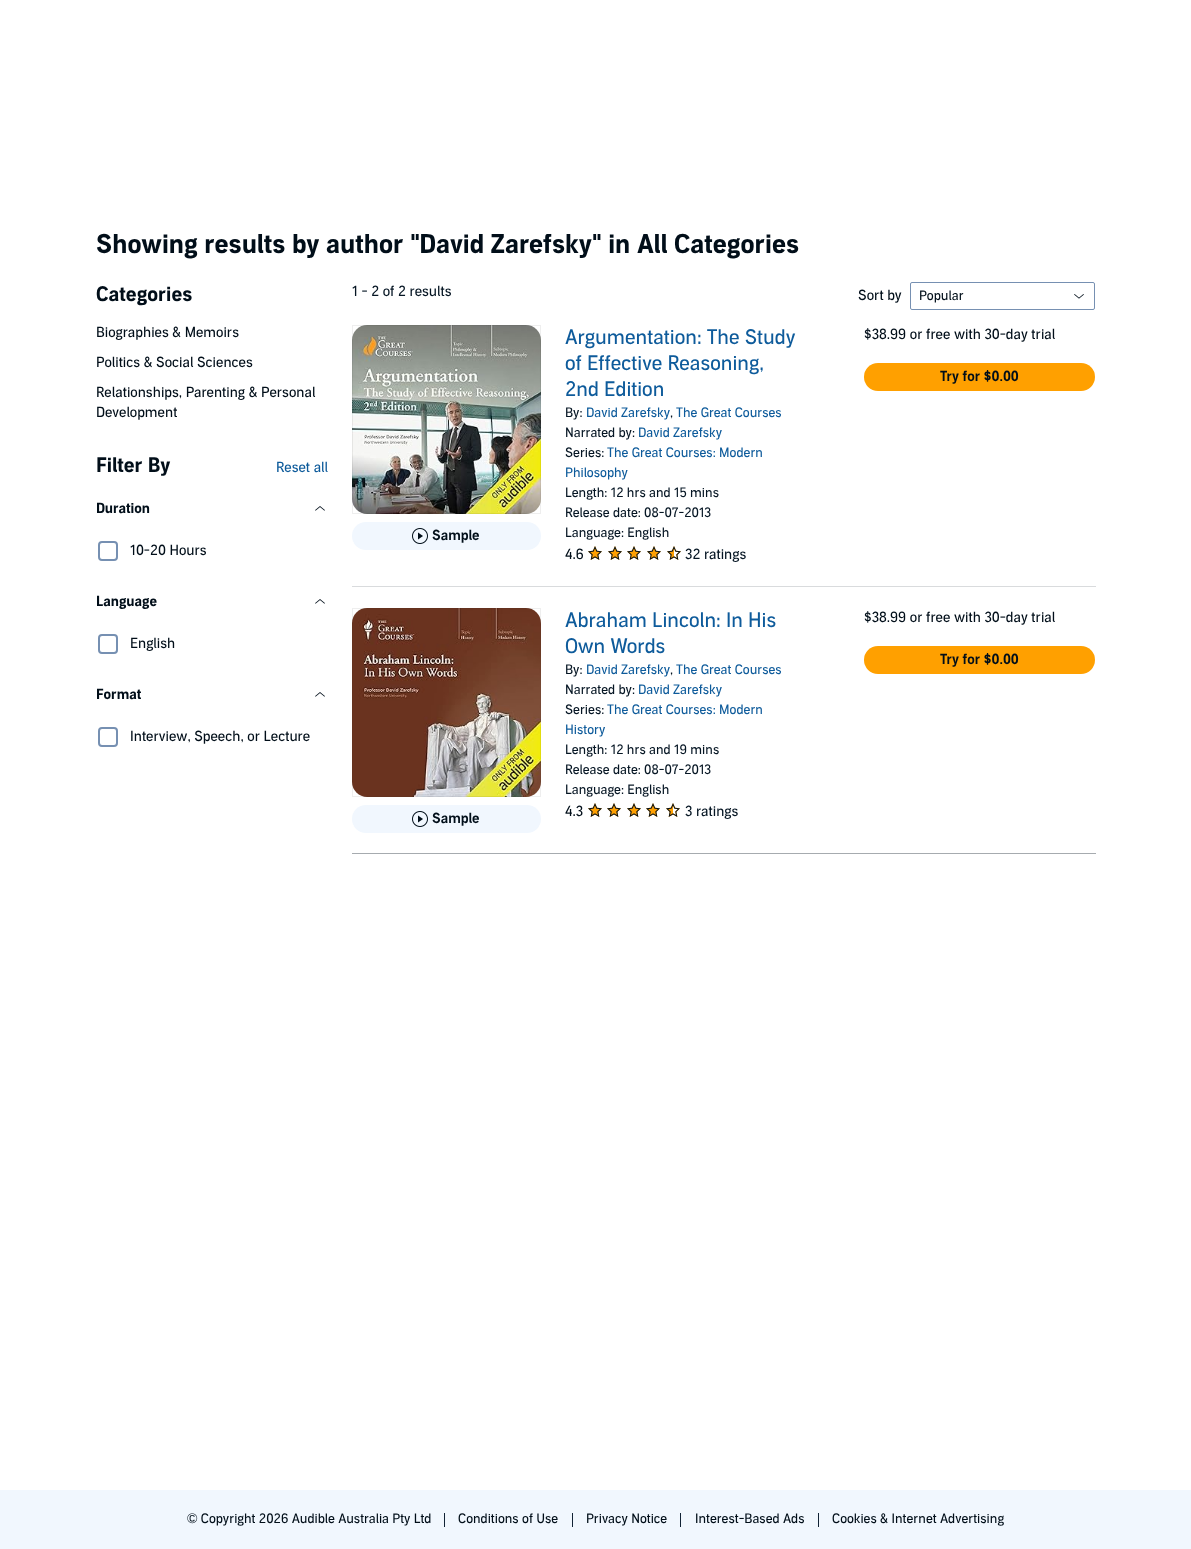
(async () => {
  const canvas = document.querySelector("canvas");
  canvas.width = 1191;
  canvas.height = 1549;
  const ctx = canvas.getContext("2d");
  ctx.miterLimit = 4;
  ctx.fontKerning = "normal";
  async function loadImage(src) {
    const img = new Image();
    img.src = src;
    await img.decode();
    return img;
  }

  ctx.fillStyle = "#ffffff";
  ctx.fillRect(0, 0, 1191, 1549);
  ctx.drawImage(await loadImage("img/1.png"), 315, 506, 10, 5);
  ctx.beginPath();
  ctx.roundRect(99, 542, 18, 18, 3);
  ctx.strokeStyle = "#7690b2";
  ctx.lineWidth = 2;
  ctx.stroke();
  ctx.drawImage(await loadImage("img/1.png"), 315, 599, 10, 5);
  ctx.beginPath();
  ctx.roundRect(99, 635, 18, 18, 3);
  ctx.stroke();
  ctx.drawImage(await loadImage("img/1.png"), 315, 692, 10, 5);
  ctx.beginPath();
  ctx.roundRect(99, 728, 18, 18, 3);
  ctx.stroke();
  ctx.beginPath();
  ctx.roundRect(910.5, 282.5, 184, 27, 1.5);
  ctx.lineWidth = 1;
  ctx.stroke();
  ctx.drawImage(await loadImage("img/2.png"), 1074, 294, 10, 5);
  ctx.drawImage(await loadImage("img/3.png"), 352, 325, 189, 189);
  ctx.strokeStyle = "rgba(33, 35, 37, 0.08)";
  ctx.strokeRect(352.5, 325.5, 188, 188);
  ctx.fillStyle = "#f1f7fe";
  ctx.beginPath();
  ctx.roundRect(352, 522, 189, 28, 14);
  ctx.fill();
  ctx.drawImage(await loadImage("img/4.png"), 412, 528, 16, 16);
  ctx.drawImage(await loadImage("img/5.png"), 588, 546, 14, 14);
  ctx.drawImage(await loadImage("img/6.png"), 588, 546, 14, 14);
  ctx.drawImage(await loadImage("img/5.png"), 608, 546, 14, 14);
  ctx.drawImage(await loadImage("img/6.png"), 608, 546, 14, 14);
  ctx.drawImage(await loadImage("img/5.png"), 627, 546, 14, 14);
  ctx.drawImage(await loadImage("img/6.png"), 627, 546, 14, 14);
  ctx.drawImage(await loadImage("img/5.png"), 647, 546, 14, 14);
  ctx.drawImage(await loadImage("img/6.png"), 647, 546, 14, 14);
  ctx.drawImage(await loadImage("img/7.png"), 667, 546, 14, 14);
  ctx.drawImage(await loadImage("img/8.png"), 667, 546, 14, 14);
  ctx.fillStyle = "#ffa000";
  ctx.beginPath();
  ctx.roundRect(864, 363, 231, 28, 14);
  ctx.fill();
  ctx.fillStyle = "#d9dbdd";
  ctx.fillRect(352, 586, 744, 1);
  ctx.drawImage(await loadImage("img/9.png"), 352, 608, 189, 189);
  ctx.strokeRect(352.5, 608.5, 188, 188);
  ctx.fillStyle = "#f1f7fe";
  ctx.beginPath();
  ctx.roundRect(352, 805, 189, 28, 14);
  ctx.fill();
  ctx.drawImage(await loadImage("img/4.png"), 412, 811, 16, 16);
  ctx.drawImage(await loadImage("img/5.png"), 588, 803, 14, 14);
  ctx.drawImage(await loadImage("img/6.png"), 588, 803, 14, 14);
  ctx.drawImage(await loadImage("img/5.png"), 607, 803, 14, 14);
  ctx.drawImage(await loadImage("img/6.png"), 607, 803, 14, 14);
  ctx.drawImage(await loadImage("img/5.png"), 627, 803, 14, 14);
  ctx.drawImage(await loadImage("img/6.png"), 627, 803, 14, 14);
  ctx.drawImage(await loadImage("img/5.png"), 646, 803, 14, 14);
  ctx.drawImage(await loadImage("img/6.png"), 646, 803, 14, 14);
  ctx.drawImage(await loadImage("img/7.png"), 666, 803, 14, 14);
  ctx.drawImage(await loadImage("img/8.png"), 666, 803, 14, 14);
  ctx.fillStyle = "#ffa000";
  ctx.beginPath();
  ctx.roundRect(864, 646, 231, 28, 14);
  ctx.fill();
  for (const [x, y, w, h, color] of [
    [352, 853, 744, 1, "#a6abaf"],
    [0, 1490, 1191, 59, "#f1f7fe"],
    [444, 1513, 1, 14, "#112235"],
    [572, 1513, 1, 14, "#112235"],
    [680, 1513, 1, 14, "#112235"],
    [818, 1513, 1, 14, "#112235"],
  ]) {
    ctx.fillStyle = color;
    ctx.fillRect(x, y, w, h);
  }
  ctx.font = "bold 26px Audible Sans";
  ctx.fillStyle = "#010e19";
  ctx.fillText("Showing results by author \"David Zarefsky\" in All Categories", 96, 253);
  ctx.font = "bold 20px Audible Sans";
  ctx.fillText("Categories", 96, 301);
  ctx.font = "14px Audible Sans";
  for (const [text, x, y] of [
    ["Biographies & Memoirs", 96, 337],
    ["Politics & Social Sciences", 96, 367],
    ["Relationships, Parenting & Personal", 96, 397],
    ["Development", 96, 417],
  ]) {
    ctx.fillText(text, x, y);
  }
  ctx.font = "bold 20px Audible Sans";
  ctx.fillText("Filter By", 96, 472);
  ctx.font = "14px Audible Sans";
  ctx.fillStyle = "#0e5b9b";
  ctx.fillText("Reset all", 276, 472);
  ctx.font = "bold 14px Audible Sans";
  ctx.fillStyle = "#010e19";
  ctx.fillText("Duration", 96, 513);
  ctx.font = "14px Audible Sans";
  ctx.fillText("10-20 Hours", 130, 555);
  ctx.font = "bold 14px Audible Sans";
  ctx.fillText("Language", 96, 606);
  ctx.font = "14px Audible Sans";
  ctx.fillText("English", 130, 648);
  ctx.font = "bold 14px Audible Sans";
  ctx.fillText("Format", 96, 699);
  ctx.font = "14px Audible Sans";
  ctx.fillText("Interview, Speech, or Lecture", 130, 741);
  ctx.fillStyle = "#061624";
  ctx.fillText("1 - 2 of 2 results", 352, 296);
  ctx.fillStyle = "#010e19";
  ctx.fillText("Sort by", 858, 300);
  ctx.font = "13px Audible Sans";
  ctx.fillText("Popular", 919, 300);
  ctx.font = "600 14px Audible Sans";
  ctx.fillText("Sample", 432, 540);
  ctx.font = "20px Audible Sans";
  ctx.fillStyle = "#0e5b9b";
  for (const [text, x, y] of [
    ["Argumentation: The Study", 565, 344],
    ["of Effective Reasoning,", 565, 370],
    ["2nd Edition", 565, 396],
  ]) {
    ctx.fillText(text, x, y);
  }
  ctx.font = "13px Audible Sans";
  ctx.fillStyle = "#061624";
  ctx.fillText("By:", 565, 417);
  ctx.fillStyle = "#0e5b9b";
  ctx.fillText("David Zarefsky", 586, 417);
  ctx.fillStyle = "#061624";
  ctx.fillText(",", 670, 417);
  ctx.fillStyle = "#0e5b9b";
  ctx.fillText("The Great Courses", 676, 417);
  ctx.fillStyle = "#061624";
  ctx.fillText("Narrated by:", 565, 437);
  ctx.fillStyle = "#0e5b9b";
  ctx.fillText("David Zarefsky", 638, 437);
  ctx.fillStyle = "#061624";
  ctx.fillText("Series:", 565, 457);
  ctx.fillStyle = "#0e5b9b";
  ctx.fillText("The Great Courses: Modern", 607, 457);
  ctx.fillText("Philosophy", 565, 477);
  ctx.fillStyle = "#061624";
  for (const [text, x, y] of [
    ["Length: 12 hrs and 15 mins", 565, 497],
    ["Release date: 08-07-2013", 565, 517],
    ["Language: English", 565, 537],
  ]) {
    ctx.fillText(text, x, y);
  }
  ctx.font = "14px Audible Sans";
  ctx.fillStyle = "#010e19";
  ctx.fillText("4.6", 565, 559);
  ctx.fillStyle = "#061624";
  ctx.fillText("32 ratings", 685, 559);
  ctx.fillStyle = "#010e19";
  ctx.fillText("$38.99 or free with 30-day trial", 864, 339);
  ctx.font = "600 14px Audible Sans";
  ctx.fillText("Try for $0.00", 940, 381);
  ctx.fillText("Sample", 432, 823);
  ctx.font = "20px Audible Sans";
  ctx.fillStyle = "#0e5b9b";
  ctx.fillText("Abraham Lincoln: In His", 565, 627);
  ctx.fillText("Own Words", 565, 653);
  ctx.font = "13px Audible Sans";
  ctx.fillStyle = "#061624";
  ctx.fillText("By:", 565, 674);
  ctx.fillStyle = "#0e5b9b";
  ctx.fillText("David Zarefsky", 586, 674);
  ctx.fillStyle = "#061624";
  ctx.fillText(",", 670, 674);
  ctx.fillStyle = "#0e5b9b";
  ctx.fillText("The Great Courses", 676, 674);
  ctx.fillStyle = "#061624";
  ctx.fillText("Narrated by:", 565, 694);
  ctx.fillStyle = "#0e5b9b";
  ctx.fillText("David Zarefsky", 638, 694);
  ctx.fillStyle = "#061624";
  ctx.fillText("Series:", 565, 714);
  ctx.fillStyle = "#0e5b9b";
  ctx.fillText("The Great Courses: Modern", 607, 714);
  ctx.fillText("History", 565, 734);
  ctx.fillStyle = "#061624";
  for (const [text, x, y] of [
    ["Length: 12 hrs and 19 mins", 565, 754],
    ["Release date: 08-07-2013", 565, 774],
    ["Language: English", 565, 794],
  ]) {
    ctx.fillText(text, x, y);
  }
  ctx.font = "14px Audible Sans";
  ctx.fillStyle = "#010e19";
  ctx.fillText("4.3", 565, 816);
  ctx.fillStyle = "#061624";
  ctx.fillText("3 ratings", 685, 816);
  ctx.fillStyle = "#010e19";
  ctx.fillText("$38.99 or free with 30-day trial", 864, 622);
  ctx.font = "600 14px Audible Sans";
  ctx.fillText("Try for $0.00", 940, 664);
  ctx.font = "13px Audible Sans";
  for (const [text, x, y] of [
    ["© Copyright 2026 Audible Australia Pty Ltd", 187, 1523],
    ["Conditions of Use", 458, 1523],
    ["Privacy Notice", 586, 1523],
    ["Interest-Based Ads", 695, 1523],
    ["Cookies & Internet Advertising", 832, 1523],
  ]) {
    ctx.fillText(text, x, y);
  }
})();
